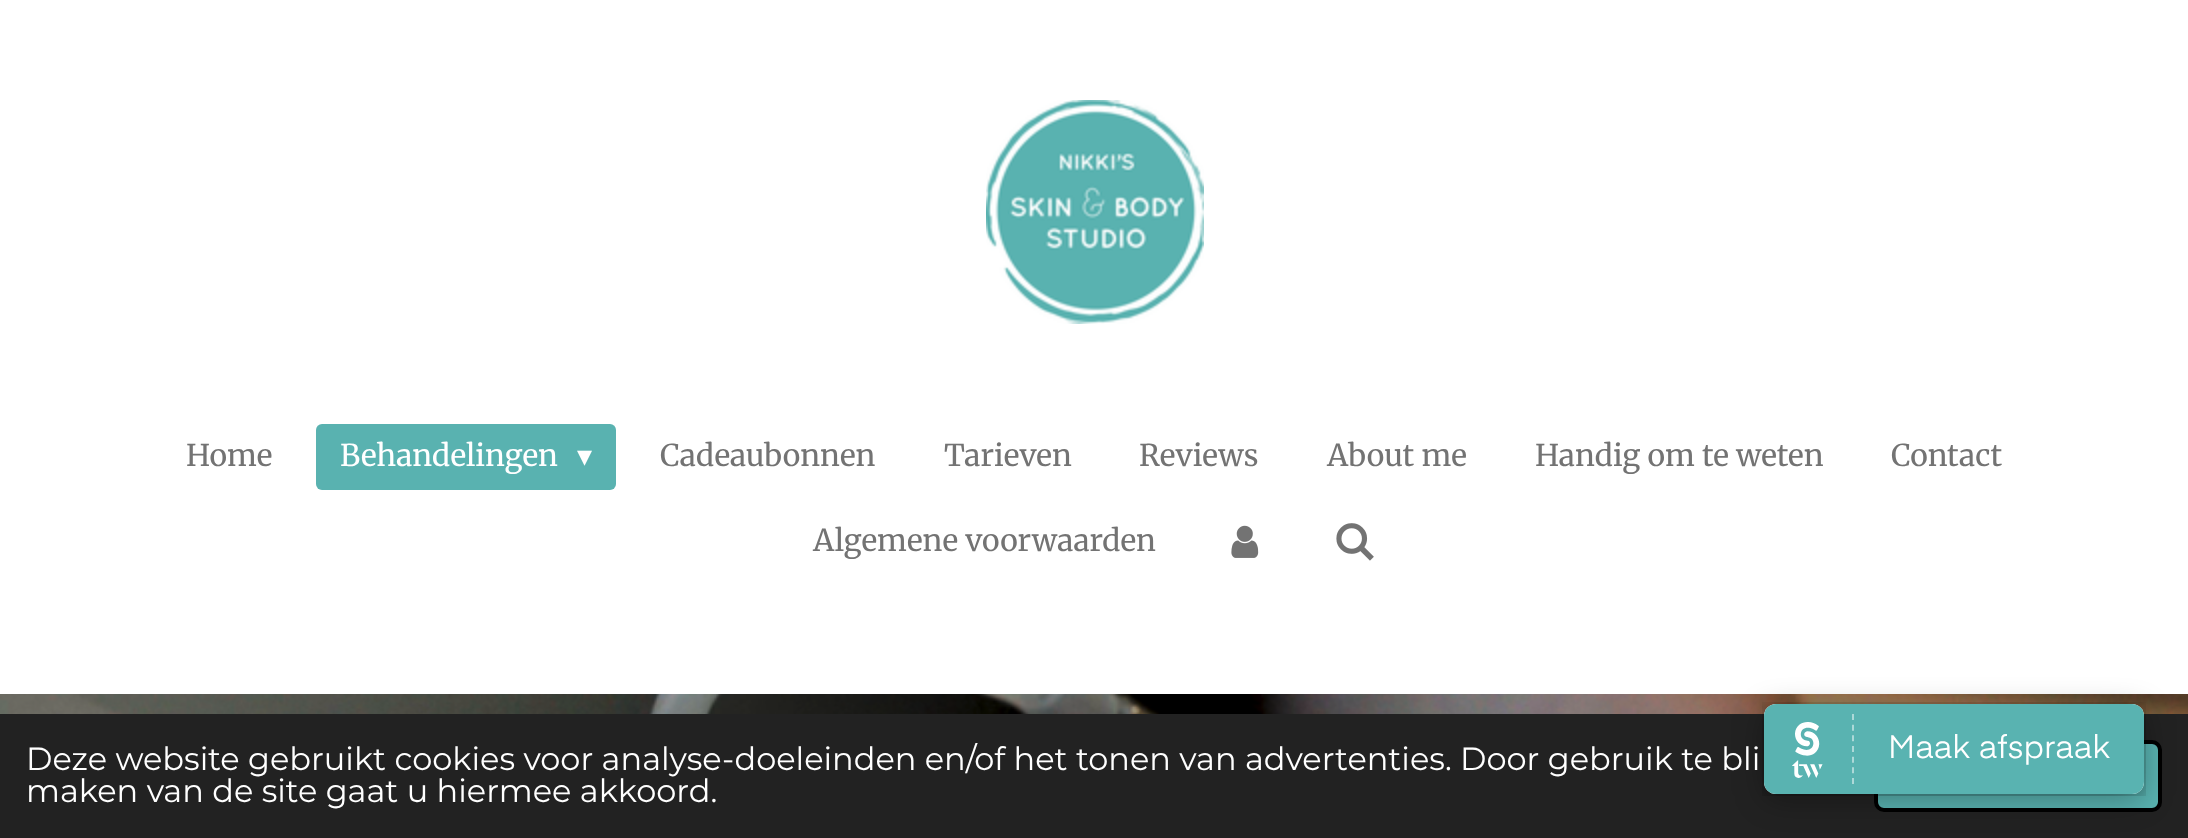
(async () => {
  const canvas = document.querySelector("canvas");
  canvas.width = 2188;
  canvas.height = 838;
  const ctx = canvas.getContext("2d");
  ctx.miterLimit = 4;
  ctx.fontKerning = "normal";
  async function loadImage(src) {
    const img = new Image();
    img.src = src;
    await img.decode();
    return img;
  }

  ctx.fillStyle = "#ffffff";
  ctx.fillRect(0, 0, 2188, 838);
  ctx.drawImage(await loadImage("img/1.png"), 986, 100, 218, 224);
  ctx.fillStyle = "#59b2b0";
  ctx.beginPath();
  ctx.roundRect(316, 424, 300, 66, 6);
  ctx.fill();
  ctx.drawImage(await loadImage("img/2.png"), 1231, 525, 28, 33);
  ctx.drawImage(await loadImage("img/3.png"), 1336, 523, 38, 38);
  ctx.drawImage(await loadImage("img/4.png"), 0, 694, 2188, 20);
  ctx.fillStyle = "#222222";
  ctx.fillRect(0, 714, 2188, 124);
  ctx.fillStyle = "#59b2b0";
  ctx.beginPath();
  ctx.roundRect(1876, 742, 284, 68, 8);
  ctx.fill();
  ctx.strokeStyle = "#000000";
  ctx.lineWidth = 4;
  ctx.stroke();
  ctx.fillStyle = "rgba(0, 0, 0, 0.3)";
  ctx.filter = "blur(15px)";
  ctx.beginPath();
  ctx.roundRect(1764, 710, 380, 90, 12);
  ctx.fill();
  ctx.filter = "none";
  ctx.drawImage(await loadImage("img/5.png"), 1762, 702, 384, 94);
  ctx.font = "30px Merriweather";
  ctx.fillStyle = "#737373";
  ctx.fillText("Home", 186, 466);
  ctx.fillStyle = "#ffffff";
  ctx.fillText("Behandelingen", 340, 466);
  ctx.font = "30px DejaVu Sans";
  ctx.fillText("▾", 577, 466);
  ctx.font = "30px Merriweather";
  ctx.fillStyle = "#737373";
  for (const [text, x, y] of [
    ["Cadeaubonnen", 660, 466],
    ["Tarieven", 944, 466],
    ["Reviews", 1139, 466],
    ["About me", 1327, 466],
    ["Handig om te weten", 1535, 466],
    ["Contact", 1891, 466],
    ["Algemene voorwaarden", 813, 551],
  ]) {
    ctx.fillText(text, x, y);
  }
  ctx.font = "32px Montserrat";
  ctx.fillStyle = "#ffffff";
  ctx.fillText("Deze website gebruikt cookies voor analyse-doeleinden en/of het tonen van advertenties. Door gebruik te bli", 26, 770);
  ctx.fillText("maken van de site gaat u hiermee akkoord.", 26, 802);
})();
